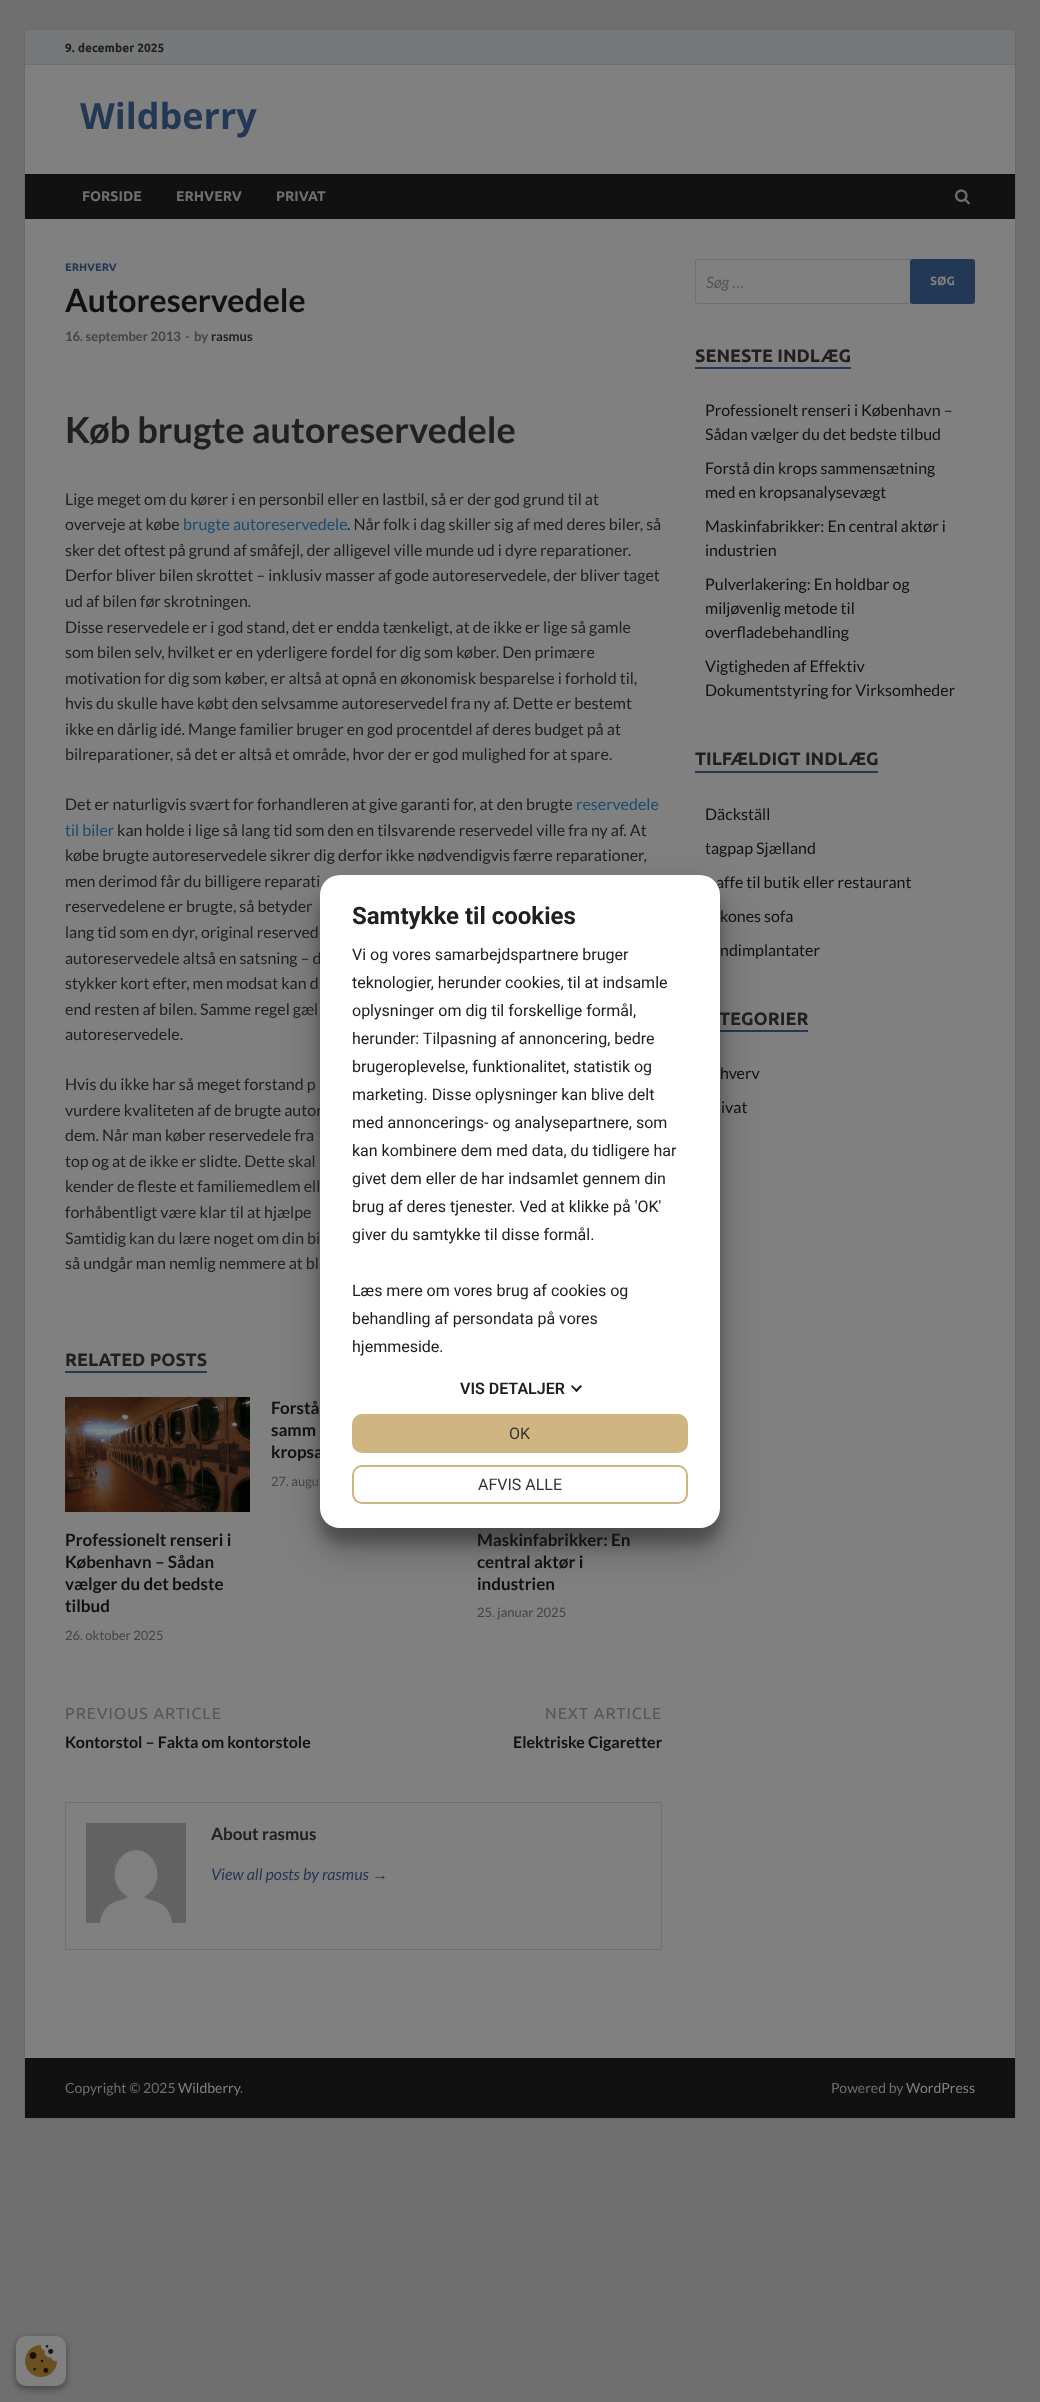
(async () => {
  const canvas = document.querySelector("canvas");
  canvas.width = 1040;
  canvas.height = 2402;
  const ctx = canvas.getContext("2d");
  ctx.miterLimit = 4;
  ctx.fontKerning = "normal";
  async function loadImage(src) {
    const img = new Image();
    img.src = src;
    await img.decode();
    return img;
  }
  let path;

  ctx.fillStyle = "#6f6f6f";
  ctx.fillRect(0, 0, 1040, 2402);
  ctx.fillStyle = "#5e5e5e";
  ctx.filter = "blur(1px)";
  ctx.beginPath();
  ctx.rect(25, 30, 990, 2088);
  ctx.fill();
  ctx.filter = "none";
  for (const [x, y, w, h, color] of [
    [25, 65, 990, 1993, "#808080"],
    [25, 30, 990, 34, "#767879"],
    [25, 64, 990, 1, "#6f6f6f"],
    [25, 174, 990, 45, "#111111"],
  ]) {
    ctx.fillStyle = color;
    ctx.fillRect(x, y, w, h);
  }
  ctx.drawImage(await loadImage("img/1.png"), 955, 189, 15, 16);
  ctx.fillStyle = "#223854";
  ctx.fillRect(65, 1371, 142, 2);
  ctx.drawImage(await loadImage("img/2.png"), 65, 1397, 185, 115);
  ctx.strokeStyle = "#6f6f6f";
  ctx.strokeRect(65.5, 1802.5, 596, 147);
  ctx.drawImage(await loadImage("img/3.png"), 86, 1823, 100, 100);
  ctx.beginPath();
  ctx.roundRect(695.5, 259.5, 279, 44, 2.5);
  ctx.stroke();
  ctx.beginPath();
  ctx.roundRect(910, 259, 65, 45, 3);
  ctx.fill();
  for (const [x, y, w, h, color] of [
    [695, 367, 156, 2, "#223854"],
    [695, 771, 183, 2, "#223854"],
    [720, 1030, 88, 2, "#223854"],
    [25, 2058, 990, 60, "#111111"],
  ]) {
    ctx.fillStyle = color;
    ctx.fillRect(x, y, w, h);
  }
  ctx.fillStyle = "rgba(0, 0, 0, 0.22)";
  ctx.filter = "blur(6px)";
  ctx.beginPath();
  ctx.roundRect(320, 890, 400, 653, 20);
  ctx.fill();
  ctx.filter = "none";
  ctx.fillStyle = "rgba(0, 0, 0, 0.3)";
  ctx.filter = "blur(19px)";
  ctx.beginPath();
  ctx.roundRect(320, 894, 400, 653, 20);
  ctx.fill();
  ctx.filter = "none";
  ctx.fillStyle = "rgba(0, 0, 0, 0.23)";
  ctx.filter = "blur(3px)";
  ctx.beginPath();
  ctx.roundRect(16, 2339, 50, 50, 10);
  ctx.fill();
  ctx.filter = "none";
  ctx.fillStyle = "rgba(0, 0, 0, 0.16)";
  ctx.filter = "blur(3px)";
  ctx.beginPath();
  ctx.roundRect(16, 2339, 50, 50, 10);
  ctx.fill();
  ctx.filter = "none";
  ctx.fillStyle = "#808080";
  ctx.beginPath();
  ctx.roundRect(16, 2336, 50, 50, 10);
  ctx.fill();
  ctx.drawImage(await loadImage("img/4.png"), 25, 2345, 32, 32);
  ctx.font = "bold 12px Ubuntu";
  ctx.fillStyle = "#202020";
  ctx.fillText("9. december 2025", 65, 52);
  ctx.font = "bold 36px Open Sans";
  ctx.fillStyle = "#223854";
  ctx.fillText("Wildberry", 80, 129);
  ctx.font = "bold 14px Ubuntu";
  ctx.fillStyle = "#6f6f6f";
  for (const [text, x, y] of [
    ["FORSIDE", 82, 201],
    ["ERHVERV", 176, 201],
    ["PRIVAT", 276, 201],
  ]) {
    ctx.fillText(text, x, y);
  }
  ctx.font = "bold 11px Ubuntu";
  ctx.fillStyle = "#223854";
  ctx.fillText("ERHVERV", 65, 271);
  ctx.font = "bold 32px Lato";
  ctx.fillStyle = "#111111";
  ctx.fillText("Autoreservedele", 65, 312);
  ctx.font = "bold 13px Lato";
  ctx.fillStyle = "#444444";
  for (const [text, x, y] of [
    ["16. september 2013", 65, 341],
    ["-", 185, 341],
    ["by", 194, 341],
  ]) {
    ctx.fillText(text, x, y);
  }
  ctx.fillStyle = "#202020";
  ctx.fillText("rasmus", 211, 341);
  ctx.font = "bold 36px Lato";
  ctx.fillText("Køb brugte autoreservedele", 65, 443);
  ctx.font = "16px Lato";
  ctx.fillText("Lige meget om du kører i en personbil eller en lastbil, så er der god grund til at", 65, 505);
  ctx.fillText("overveje at købe", 65, 530);
  ctx.fillStyle = "#1a4c6e";
  ctx.fillText("brugte autoreservedele", 183, 530);
  ctx.fillStyle = "#202020";
  for (const [text, x, y] of [
    [". Når folk i dag skiller sig af med deres biler, så", 347, 530],
    ["sker det oftest på grund af småfejl, der alligevel ville munde ud i dyre reparationer.", 65, 556],
    ["Derfor bliver bilen skrottet – inklusiv masser af gode autoreservedele, der bliver taget", 65, 581],
    ["ud af bilen før skrotningen.", 65, 607],
    ["Disse reservedele er i god stand, det er endda tænkeligt, at de ikke er lige så gamle", 65, 633],
    ["som bilen selv, hvilket er en yderligere fordel for dig som køber. Den primære", 65, 658],
    ["motivation for dig som køber, er altså at opnå en økonomisk besparelse i forhold til,", 65, 684],
    ["hvis du skulle have købt den selvsamme autoreservedel fra ny af. Dette er bestemt", 65, 709],
    ["ikke en dårlig idé. Mange familier bruger en god procentdel af deres budget på at", 65, 735],
    ["bilreparationer, så det er altså et område, hvor der er god mulighed for at spare.", 65, 760],
    ["Det er naturligvis svært for forhandleren at give garanti for, at den brugte", 65, 810],
  ]) {
    ctx.fillText(text, x, y);
  }
  ctx.fillStyle = "#1a4c6e";
  ctx.fillText("reservedele", 576, 810);
  ctx.fillText("til biler", 65, 836);
  ctx.fillStyle = "#202020";
  for (const [text, x, y] of [
    ["kan holde i lige så lang tid som den en tilsvarende reservedel ville fra ny af. At", 117, 836],
    ["købe brugte autoreservedele sikrer dig derfor ikke nødvendigvis færre reparationer,", 65, 861],
    ["men derimod får du billigere reparati", 65, 887],
    ["reservedelene er brugte, så betyder", 65, 912],
    ["lang tid som en dyr, original reserved", 65, 938],
    ["autoreservedele altså en satsning – d", 65, 964],
    ["stykker kort efter, men modsat kan d", 65, 989],
    ["end resten af bilen. Samme regel gæl", 65, 1015],
    ["autoreservedele.", 65, 1040],
    ["Hvis du ikke har så meget forstand p", 65, 1090],
    ["vurdere kvaliteten af de brugte autor", 65, 1116],
    ["dem. Når man køber reservedele fra", 65, 1141],
    ["top og at de ikke er slidte. Dette skal", 65, 1167],
    ["kender de fleste et familiemedlem ell", 65, 1192],
    ["forhåbentligt være klar til at hjælpe", 65, 1218],
    ["Samtidig kan du lære noget om din bi", 65, 1244],
    ["så undgår man nemlig nemmere at bl", 65, 1269],
  ]) {
    ctx.fillText(text, x, y);
  }
  ctx.font = "bold 18px Ubuntu";
  ctx.fillText("RELATED POSTS", 65, 1366);
  ctx.font = "bold 17px Lato";
  ctx.fillStyle = "#111111";
  for (const [text, x, y] of [
    ["Forstå", 271, 1414],
    ["samm", 271, 1436],
    ["kropsa", 271, 1458],
  ]) {
    ctx.fillText(text, x, y);
  }
  ctx.font = "13px Lato";
  ctx.fillStyle = "#444444";
  ctx.fillText("27. augu", 271, 1486);
  ctx.font = "bold 17px Lato";
  ctx.fillStyle = "#111111";
  for (const [text, x, y] of [
    ["Professionelt renseri i", 65, 1546],
    ["København – Sådan", 65, 1568],
    ["vælger du det bedste", 65, 1590],
    ["tilbud", 65, 1612],
  ]) {
    ctx.fillText(text, x, y);
  }
  ctx.font = "13px Lato";
  ctx.fillStyle = "#444444";
  ctx.fillText("26. oktober 2025", 65, 1640);
  ctx.font = "bold 17px Lato";
  ctx.fillStyle = "#111111";
  for (const [text, x, y] of [
    ["Maskinfabrikker: En", 477, 1546],
    ["central aktør i", 477, 1568],
    ["industrien", 477, 1590],
  ]) {
    ctx.fillText(text, x, y);
  }
  ctx.font = "13px Lato";
  ctx.fillStyle = "#444444";
  ctx.fillText("25. januar 2025", 477, 1617);
  ctx.letterSpacing = "1px";
  ctx.font = "16px Ubuntu";
  ctx.fillStyle = "#555555";
  ctx.fillText("PREVIOUS ARTICLE", 65, 1719);
  ctx.letterSpacing = "0px";
  ctx.font = "bold 16px Lato";
  ctx.fillStyle = "#111111";
  ctx.fillText("Kontorstol – Fakta om kontorstole", 65, 1748);
  ctx.letterSpacing = "1px";
  ctx.font = "16px Ubuntu";
  ctx.fillStyle = "#555555";
  ctx.fillText("NEXT ARTICLE", 545, 1719);
  ctx.letterSpacing = "0px";
  ctx.font = "bold 16px Lato";
  ctx.fillStyle = "#111111";
  ctx.fillText("Elektriske Cigaretter", 513, 1748);
  ctx.font = "bold 17px Lato";
  ctx.fillStyle = "#202020";
  ctx.fillText("About rasmus", 211, 1840);
  ctx.font = "italic 16px Lato";
  ctx.fillStyle = "#223854";
  ctx.fillText("View all posts by rasmus", 211, 1880);
  ctx.font = "italic 16px Liberation Sans";
  ctx.fillText("→", 372, 1880);
  ctx.font = "italic 16px Lato";
  ctx.fillStyle = "#555555";
  ctx.fillText("Søg …", 706, 288);
  ctx.font = "bold 12px Ubuntu";
  ctx.fillStyle = "#808080";
  ctx.fillText("SØG", 930, 285);
  ctx.font = "bold 18px Ubuntu";
  ctx.fillStyle = "#202020";
  ctx.fillText("SENESTE INDLÆG", 695, 362);
  ctx.font = "16px Lato";
  ctx.fillStyle = "#111111";
  for (const [text, x, y] of [
    ["Professionelt renseri i København –", 705, 416],
    ["Sådan vælger du det bedste tilbud", 705, 440],
    ["Forstå din krops sammensætning", 705, 474],
    ["med en kropsanalysevægt", 705, 498],
    ["Maskinfabrikker: En central aktør i", 705, 532],
    ["industrien", 705, 556],
    ["Pulverlakering: En holdbar og", 705, 590],
    ["miljøvenlig metode til", 705, 614],
    ["overfladebehandling", 705, 638],
    ["Vigtigheden af Effektiv", 705, 672],
    ["Dokumentstyring for Virksomheder", 705, 696],
  ]) {
    ctx.fillText(text, x, y);
  }
  ctx.font = "bold 18px Ubuntu";
  ctx.fillStyle = "#202020";
  ctx.fillText("TILFÆLDIGT INDLÆG", 695, 765);
  ctx.font = "16px Lato";
  ctx.fillStyle = "#111111";
  for (const [text, x, y] of [
    ["Däckställ", 705, 820],
    ["tagpap Sjælland", 705, 854],
    ["affe til butik eller restaurant", 716, 888],
    ["kones sofa", 720, 922],
    ["ndimplantater", 720, 956],
  ]) {
    ctx.fillText(text, x, y);
  }
  ctx.font = "bold 18px Ubuntu";
  ctx.fillStyle = "#202020";
  ctx.fillText("TEGORIER", 719, 1025);
  ctx.font = "16px Lato";
  ctx.fillStyle = "#111111";
  ctx.fillText("hverv", 720, 1079);
  ctx.fillText("ivat", 721, 1113);
  ctx.font = "14px Lato";
  ctx.fillStyle = "#6f6f6f";
  ctx.fillText("Copyright © 2025", 65, 2093);
  ctx.fillStyle = "#808080";
  ctx.fillText("Wildberry", 178, 2093);
  ctx.fillStyle = "#6f6f6f";
  ctx.fillText(".", 240, 2093);
  ctx.fillText("Powered by", 831, 2093);
  ctx.fillStyle = "#808080";
  ctx.fillText("WordPress", 906, 2093);
  ctx.fillStyle = "#ffffff";
  ctx.beginPath();
  ctx.roundRect(320, 875, 400, 653, 20);
  ctx.fill();
  ctx.font = "bold 24px Roboto";
  ctx.fillStyle = "#202020";
  ctx.fillText("Samtykke til cookies", 352, 924);
  ctx.font = "16px Roboto";
  for (const [text, x, y] of [
    ["Vi og vores samarbejdspartnere bruger", 352, 960],
    ["teknologier, herunder cookies, til at indsamle", 352, 988],
    ["oplysninger om dig til forskellige formål,", 352, 1016],
    ["herunder: Tilpasning af annoncering, bedre", 352, 1044],
    ["brugeroplevelse, funktionalitet, statistik og", 352, 1072],
    ["marketing. Disse oplysninger kan blive delt", 352, 1100],
    ["med annoncerings- og analysepartnere, som", 352, 1128],
    ["kan kombinere dem med data, du tidligere har", 352, 1156],
    ["givet dem eller de har indsamlet gennem din", 352, 1184],
    ["brug af deres tjenester. Ved at klikke på 'OK'", 352, 1212],
    ["giver du samtykke til disse formål.", 352, 1240],
    ["Læs mere om vores brug af cookies og", 352, 1296],
    ["behandling af persondata på vores", 352, 1324],
    ["hjemmeside.", 352, 1352],
  ]) {
    ctx.fillText(text, x, y);
  }
  ctx.font = "600 16px Roboto";
  ctx.fillText("VIS DETALJER", 460, 1394);
  ctx.fillStyle = "#212121";
  path = new Path2D("M580.5 1385L582 1386.5L576.5 1392L575 1390.5Z");
  ctx.fill(path);
  path = new Path2D("M572 1385L578 1390.5L576.5 1392L571 1386.5Z");
  ctx.fill(path);
  ctx.fillStyle = "#ceb582";
  ctx.beginPath();
  ctx.roundRect(353, 1415, 334, 37, 9);
  ctx.fill();
  ctx.strokeStyle = "#ceb582";
  ctx.lineWidth = 2;
  ctx.stroke();
  ctx.font = "16px Roboto";
  ctx.fillStyle = "#333333";
  ctx.fillText("OK", 509, 1439);
  ctx.beginPath();
  ctx.roundRect(353, 1466, 334, 37, 9);
  ctx.stroke();
  ctx.fillText("AFVIS ALLE", 478, 1490);
})();
